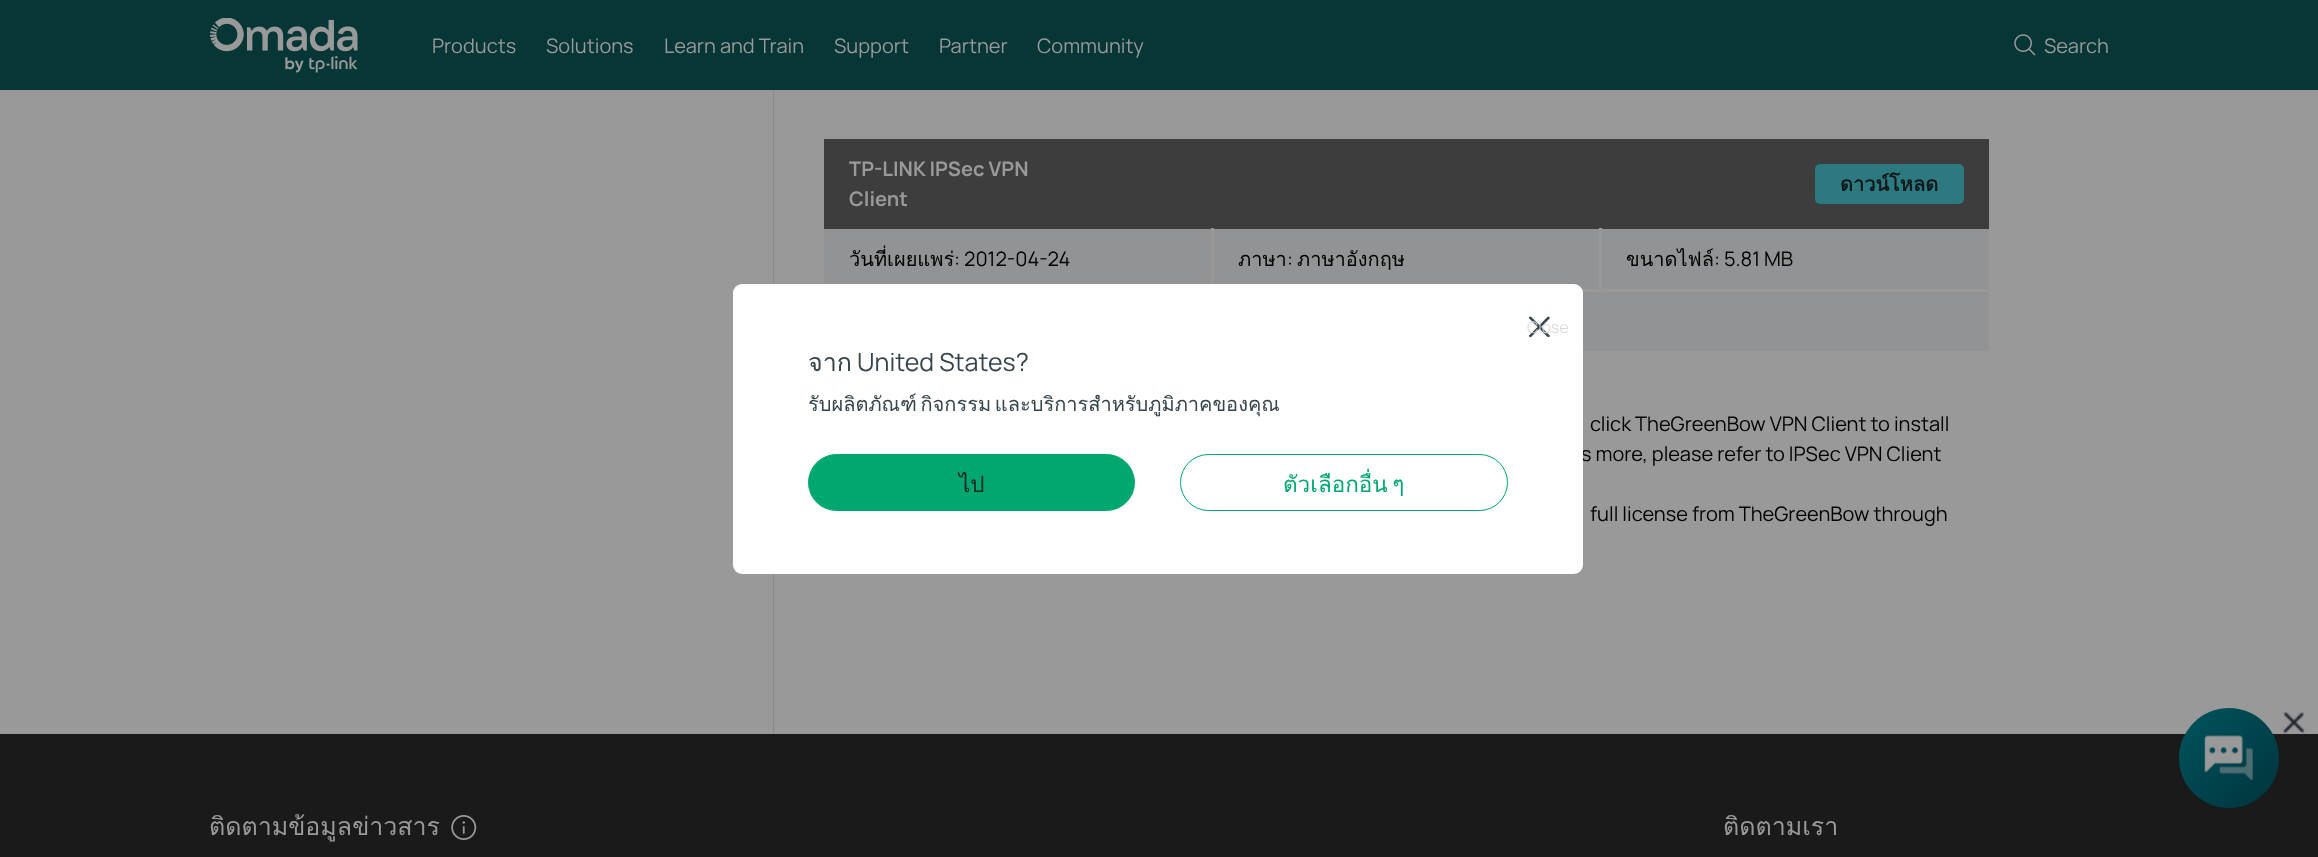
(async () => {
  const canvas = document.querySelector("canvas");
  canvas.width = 2318;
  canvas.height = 857;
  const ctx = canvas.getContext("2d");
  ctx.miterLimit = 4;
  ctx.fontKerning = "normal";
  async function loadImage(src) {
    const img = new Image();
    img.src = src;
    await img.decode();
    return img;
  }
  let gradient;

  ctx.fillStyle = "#999999";
  ctx.fillRect(0, 0, 2318, 857);
  ctx.fillStyle = "#063636";
  ctx.fillRect(0, 0, 2318, 90);
  ctx.drawImage(await loadImage("img/1.png"), 210, 18, 148, 55);
  ctx.drawImage(await loadImage("img/2.png"), 2014, 34, 22, 22);
  ctx.fillStyle = "#898989";
  ctx.fillRect(773, 90, 1, 644);
  ctx.fillStyle = "#3d3d3d";
  ctx.fillRect(824, 139, 1165, 90);
  ctx.fillStyle = "#2c7a80";
  ctx.beginPath();
  ctx.roundRect(1815, 164, 149, 40, 5);
  ctx.fill();
  for (const [x, y, w, h, color] of [
    [824, 229, 387, 55, "#929394"],
    [1211, 228, 3, 1, "#999999"],
    [1214, 229, 385, 60, "#929394"],
    [1599, 228, 3, 1, "#999999"],
    [1602, 229, 387, 60, "#929394"],
    [1582, 292, 407, 59, "#929394"],
    [0, 734, 2318, 123, "#1a1a1a"],
  ]) {
    ctx.fillStyle = color;
    ctx.fillRect(x, y, w, h);
  }
  ctx.drawImage(await loadImage("img/4.png"), 451, 815, 26, 25);
  gradient = ctx.createLinearGradient(2179, 708, 2279, 808);
  gradient.addColorStop(0, "#00555e");
  gradient.addColorStop(1, "#00333c");
  ctx.fillStyle = gradient;
  ctx.beginPath();
  ctx.arc(2229, 758, 50, 0, Math.PI * 2);
  ctx.fill();
  ctx.drawImage(await loadImage("img/5.png"), 2204, 735, 49, 46);
  ctx.drawImage(await loadImage("img/6.png"), 2283, 712, 22, 22);
  ctx.font = "20px Manrope";
  ctx.fillStyle = "#999999";
  for (const [text, x, y] of [
    ["Products", 432, 53],
    ["Solutions", 546, 53],
    ["Learn and Train", 664, 53],
    ["Support", 834, 53],
    ["Partner", 939, 53],
    ["Community", 1037, 53],
    ["Search", 2044, 53],
  ]) {
    ctx.fillText(text, x, y);
  }
  ctx.font = "bold 20px Manrope";
  ctx.fillText("TP-LINK IPSec VPN", 849, 176);
  ctx.fillText("Client", 849, 206);
  ctx.font = "bold 20px Loma";
  ctx.fillStyle = "#111619";
  ctx.fillText("ดาวน์โหลด", 1840, 191);
  ctx.font = "20px Loma";
  ctx.fillStyle = "#000000";
  ctx.fillText("วันที่เผยแพร่", 849, 266);
  ctx.font = "20px Manrope";
  ctx.fillText(": 2012-04-24", 954, 266);
  ctx.font = "20px Loma";
  ctx.fillText("ภาษา", 1238, 266);
  ctx.font = "20px Manrope";
  ctx.fillText(":", 1287, 266);
  ctx.font = "20px Loma";
  ctx.fillText("ภาษาอังกฤษ", 1297, 266);
  ctx.fillText("ขนาดไฟล์", 1626, 266);
  ctx.font = "20px Manrope";
  for (const [text, x, y] of [
    [": 5.81 MB", 1714, 266],
    ["click TheGreenBow VPN Client to install", 1590, 431],
    ["s more, please refer to IPSec VPN Client", 1581, 461],
    ["full license from TheGreenBow through", 1590, 521],
  ]) {
    ctx.fillText(text, x, y);
  }
  ctx.fillStyle = "#ffffff";
  ctx.beginPath();
  ctx.roundRect(733, 284, 850, 290, 9);
  ctx.fill();
  ctx.drawImage(await loadImage("img/3.png"), 1528, 316, 22, 22);
  ctx.font = "300 16px Manrope";
  ctx.fillStyle = "#d5d8da";
  ctx.fillText("Close", 1527, 333);
  ctx.font = "25px Loma";
  ctx.fillStyle = "#36444b";
  ctx.fillText("จาก", 808, 371);
  ctx.font = "25px Manrope";
  ctx.fillText("United States?", 857, 371);
  ctx.wordSpacing = "-3px";
  ctx.font = "20px Loma";
  ctx.fillText("รับผลิตภัณฑ์ กิจกรรม และบริการสำหรับภูมิภาคของคุณ", 808, 411);
  ctx.fillStyle = "#00a870";
  ctx.beginPath();
  ctx.roundRect(808.5, 454.5, 326, 56, 28);
  ctx.fill();
  ctx.strokeStyle = "#00a870";
  ctx.stroke();
  ctx.wordSpacing = "0px";
  ctx.font = "22.5px Loma";
  ctx.fillStyle = "#1d2529";
  ctx.fillText("ไป", 959, 492);
  ctx.beginPath();
  ctx.roundRect(1180.5, 454.5, 327, 56, 28);
  ctx.stroke();
  ctx.wordSpacing = "-3px";
  ctx.fillStyle = "#00a870";
  ctx.fillText("ตัวเลือกอื่น ๆ", 1283, 492);
  ctx.wordSpacing = "0px";
  ctx.font = "25px Loma";
  ctx.fillStyle = "#999999";
  ctx.fillText("ติดตามข้อมูลข่าวสาร", 209, 835);
  ctx.fillText("ติดตามเรา", 1723, 835);
})();
